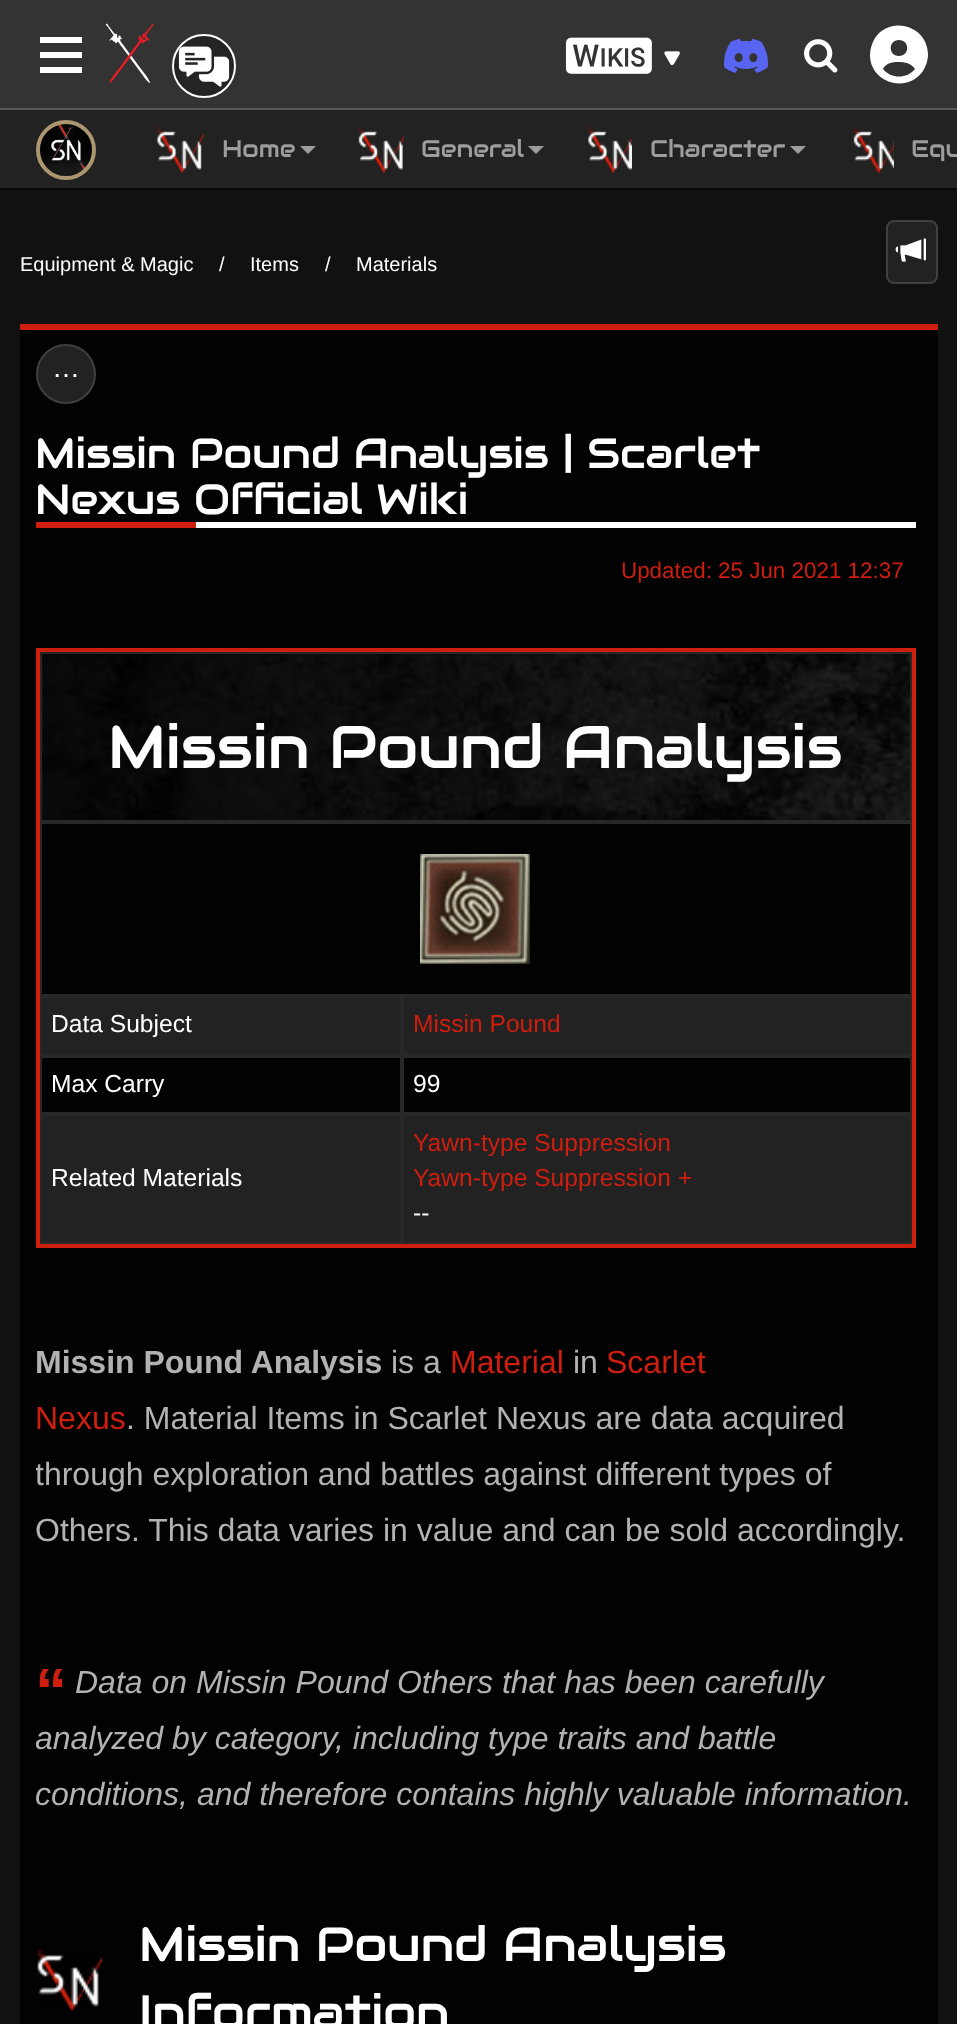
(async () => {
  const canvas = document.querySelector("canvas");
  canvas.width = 957;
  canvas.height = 2024;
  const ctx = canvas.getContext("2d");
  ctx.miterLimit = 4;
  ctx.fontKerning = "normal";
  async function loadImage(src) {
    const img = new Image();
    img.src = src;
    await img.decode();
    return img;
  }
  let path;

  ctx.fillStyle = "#111111";
  ctx.fillRect(0, 0, 957, 2024);
  ctx.fillStyle = "#333333";
  ctx.fillRect(0, 0, 957, 108);
  ctx.fillStyle = "#595959";
  ctx.fillRect(0, 108, 957, 2);
  ctx.fillStyle = "#ffffff";
  path = new Path2D("M40 37H82V43H40ZM40 52H82V58H40ZM82 67V73H40V67Z");
  ctx.fill(path);
  ctx.drawImage(await loadImage("img/1.png"), 106, 23, 48, 61);
  ctx.fillStyle = "#242424";
  ctx.beginPath();
  ctx.arc(204, 66, 31, 0, Math.PI * 2);
  ctx.fill();
  ctx.strokeStyle = "#ffffff";
  ctx.lineWidth = 2;
  ctx.stroke();
  ctx.drawImage(await loadImage("img/2.png"), 178, 46, 52, 41);
  ctx.drawImage(await loadImage("img/3.png"), 565, 37, 115, 37);
  ctx.drawImage(await loadImage("img/4.png"), 724, 38, 44, 35);
  ctx.drawImage(await loadImage("img/5.png"), 804, 39, 34, 34);
  ctx.fillStyle = "#ffffff";
  path = new Path2D("M915 69C911 63 905 62 898 62C892 62 886 63 883 69C891 79 907 79 915 69ZM870 55C870 49 872 43 875 38C891 15 928 26 928 55C928 60 926 66 923 71C907 94 870 83 870 55ZM899 56C910 56 910 40 899 40C888 40 888 56 899 56Z");
  ctx.fill(path);
  ctx.fillStyle = "#222222";
  ctx.fillRect(0, 110, 957, 78);
  ctx.fillStyle = "#080808";
  ctx.fillRect(0, 188, 957, 2);
  ctx.drawImage(await loadImage("img/6.png"), 40, 124, 52, 52);
  ctx.beginPath();
  ctx.arc(66, 150, 28, 0, Math.PI * 2);
  ctx.strokeStyle = "#ab966f";
  ctx.lineWidth = 4;
  ctx.stroke();
  ctx.drawImage(await loadImage("img/7.png"), 156, 126, 48, 48);
  ctx.fillStyle = "#9d9d9d";
  path = new Path2D("M300 146H316L308 154Z");
  ctx.fill(path);
  ctx.drawImage(await loadImage("img/8.png"), 358, 126, 46, 48);
  path = new Path2D("M528 146H544L536 154Z");
  ctx.fill(path);
  ctx.drawImage(await loadImage("img/9.png"), 587, 126, 45, 48);
  path = new Path2D("M790 146H806L798 154Z");
  ctx.fill(path);
  ctx.drawImage(await loadImage("img/10.png"), 853, 126, 41, 48);
  ctx.fillStyle = "#222222";
  ctx.beginPath();
  ctx.roundRect(887, 221, 50, 62, 7);
  ctx.fill();
  ctx.strokeStyle = "#404040";
  ctx.lineWidth = 2;
  ctx.stroke();
  ctx.drawImage(await loadImage("img/11.png"), 895, 238, 31, 24);
  ctx.fillStyle = "#020202";
  ctx.fillRect(20, 330, 918, 1694);
  ctx.fillStyle = "#222222";
  ctx.beginPath();
  ctx.arc(66, 374, 29, 0, Math.PI * 2);
  ctx.fill();
  ctx.stroke();
  for (const [x, y, w, h, color] of [
    [20, 324, 918, 6, "#ce1e0f"],
    [196, 522, 720, 6, "#ffffff"],
    [36, 522, 160, 6, "#ce1e0f"],
  ]) {
    ctx.fillStyle = color;
    ctx.fillRect(x, y, w, h);
  }
  ctx.strokeStyle = "#ce1e0f";
  ctx.lineWidth = 4;
  ctx.strokeRect(38, 650, 876, 596);
  ctx.drawImage(await loadImage("img/12.png"), 42, 654, 868, 166);
  ctx.strokeStyle = "#282828";
  ctx.lineWidth = 2;
  ctx.strokeRect(41, 653, 870, 168);
  ctx.strokeRect(41, 823, 870, 172);
  ctx.drawImage(await loadImage("img/13.png"), 420, 854, 110, 110);
  ctx.fillStyle = "#222222";
  ctx.fillRect(42, 998, 868, 56);
  ctx.strokeRect(41, 997, 360, 58);
  ctx.strokeRect(403, 997, 508, 58);
  ctx.strokeRect(41, 1057, 360, 56);
  ctx.strokeRect(403, 1057, 508, 56);
  ctx.fillRect(42, 1116, 868, 126);
  ctx.strokeRect(41, 1115, 360, 128);
  ctx.strokeRect(403, 1115, 508, 128);
  ctx.drawImage(await loadImage("img/14.png"), 36, 1948, 66, 64);
  ctx.font = "24px Audiowide";
  ctx.fillStyle = "#9d9d9d";
  for (const [text, x, y] of [
    ["Home", 222, 157],
    ["General", 421, 157],
    ["Character", 650, 157],
    ["Equ", 911, 157],
  ]) {
    ctx.fillText(text, x, y);
  }
  ctx.font = "20px Liberation Sans";
  ctx.fillStyle = "#ffffff";
  for (const [text, x, y] of [
    ["Equipment & Magic", 20, 271],
    ["/", 219, 271],
    ["Items", 250, 271],
    ["/", 325, 271],
    ["Materials", 356, 271],
  ]) {
    ctx.fillText(text, x, y);
  }
  ctx.font = "28px Liberation Sans";
  ctx.fillText("…", 52, 377);
  ctx.font = "42px Audiowide";
  ctx.fillText("Missin Pound Analysis | Scarlet", 35, 468);
  ctx.fillText("Nexus Official Wiki", 35, 514);
  ctx.font = "22.4px Liberation Sans";
  ctx.fillStyle = "#ce1e0f";
  ctx.fillText("Updated: 25 Jun 2021 12:37", 621, 578);
  ctx.font = "60px Audiowide";
  ctx.fillStyle = "#ffffff";
  ctx.fillText("Missin Pound Analysis", 108, 768);
  ctx.font = "24.6px Liberation Sans";
  ctx.fillText("Data Subject", 51, 1032);
  ctx.fillStyle = "#ce1e0f";
  ctx.fillText("Missin Pound", 413, 1032);
  ctx.fillStyle = "#ffffff";
  for (const [text, x, y] of [
    ["Max Carry", 51, 1092],
    ["99", 413, 1092],
    ["Related Materials", 51, 1186],
  ]) {
    ctx.fillText(text, x, y);
  }
  ctx.fillStyle = "#ce1e0f";
  ctx.fillText("Yawn-type Suppression", 413, 1151);
  ctx.fillText("Yawn-type Suppression +", 413, 1186);
  ctx.fillStyle = "#ffffff";
  ctx.fillText("--", 413, 1221);
  ctx.font = "bold 32px Liberation Sans";
  ctx.fillStyle = "#b4b2b0";
  ctx.fillText("Missin Pound Analysis", 35, 1373);
  ctx.font = "32px Liberation Sans";
  ctx.fillText("is a", 391, 1373);
  ctx.fillStyle = "#ce1e0f";
  ctx.fillText("Material", 450, 1373);
  ctx.fillStyle = "#b4b2b0";
  ctx.fillText("in", 573, 1373);
  ctx.fillStyle = "#ce1e0f";
  ctx.fillText("Scarlet", 606, 1373);
  ctx.fillText("Nexus", 35, 1429);
  ctx.fillStyle = "#b4b2b0";
  ctx.fillText(". Material Items in Scarlet Nexus are data acquired", 126, 1429);
  ctx.save();
  ctx.beginPath();
  ctx.rect(36, 390, 888, 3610);
  ctx.clip();
  ctx.fillText("through exploration and battles against different types of", 35, 1485);
  ctx.restore();
  ctx.fillText("Others. This data varies in value and can be sold accordingly.", 35, 1541);
  ctx.letterSpacing = "-6px";
  ctx.font = "bold 64px Liberation Sans";
  ctx.fillStyle = "#ce1e0f";
  ctx.fillText("“", 35, 1713);
  ctx.letterSpacing = "0px";
  ctx.font = "italic 32px Liberation Sans";
  ctx.fillStyle = "#b4b2b0";
  ctx.fillText("Data on Missin Pound Others that has been carefully", 75, 1693);
  ctx.save();
  ctx.beginPath();
  ctx.rect(36, 390, 888, 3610);
  ctx.clip();
  ctx.fillText("analyzed by category, including type traits and battle", 35, 1749);
  ctx.restore();
  ctx.fillText("conditions, and therefore contains highly valuable information.", 35, 1805);
  ctx.font = "48px Audiowide";
  ctx.fillStyle = "#ffffff";
  ctx.fillText("Missin Pound Analysis", 139, 1961);
  ctx.fillText("Information", 139, 2029);
})();
